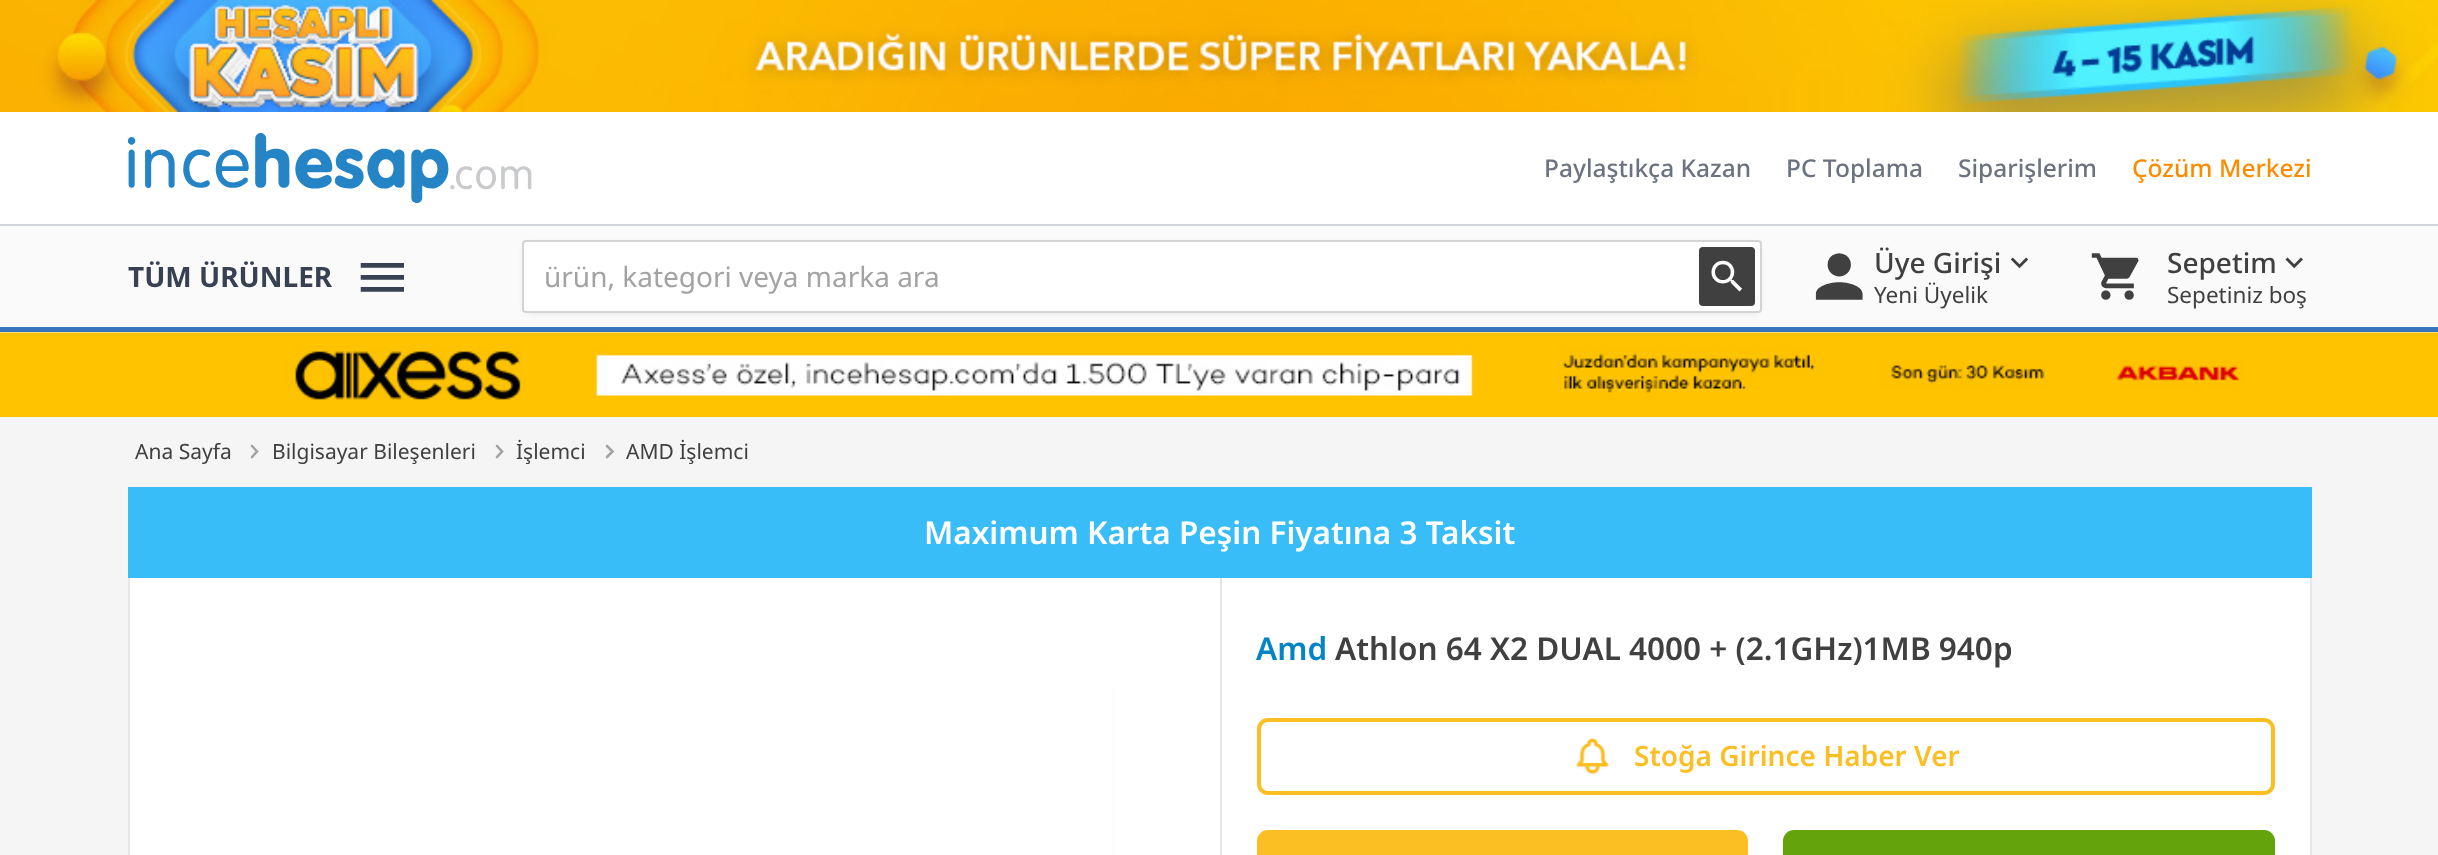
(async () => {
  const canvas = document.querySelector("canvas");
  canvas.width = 2438;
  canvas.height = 855;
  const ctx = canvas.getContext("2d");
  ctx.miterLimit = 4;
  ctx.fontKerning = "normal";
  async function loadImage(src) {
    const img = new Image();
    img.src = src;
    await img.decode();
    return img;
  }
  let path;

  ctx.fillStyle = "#f5f5f5";
  ctx.fillRect(0, 0, 2438, 855);
  ctx.drawImage(await loadImage("img/1.png"), 0, 0, 2438, 112);
  ctx.fillStyle = "#ffffff";
  ctx.fillRect(0, 112, 2438, 112);
  ctx.fillStyle = "#d1d5db";
  ctx.fillRect(0, 224, 2438, 2);
  ctx.drawImage(await loadImage("img/2.png"), 128, 133, 404, 70);
  ctx.fillStyle = "#fafafa";
  ctx.fillRect(0, 226, 2438, 101);
  ctx.fillStyle = "#3973b9";
  ctx.fillRect(0, 327, 2438, 5);
  ctx.drawImage(await loadImage("img/3.png"), 360, 263, 44, 29);
  ctx.fillStyle = "rgba(0, 0, 0, 0.05)";
  ctx.filter = "blur(2px)";
  ctx.beginPath();
  ctx.roundRect(522, 242, 1240, 73, 11);
  ctx.fill();
  ctx.filter = "none";
  ctx.fillStyle = "#ffffff";
  ctx.beginPath();
  ctx.roundRect(523, 241, 1238, 71, 3);
  ctx.fill();
  ctx.strokeStyle = "#d4d4d4";
  ctx.lineWidth = 2;
  ctx.stroke();
  ctx.fillStyle = "#404040";
  ctx.beginPath();
  ctx.roundRect(1699, 247, 56, 59, 4);
  ctx.fill();
  ctx.drawImage(await loadImage("img/4.png"), 1711, 260, 31, 32);
  ctx.drawImage(await loadImage("img/5.png"), 1815, 253, 48, 47);
  ctx.drawImage(await loadImage("img/6.png"), 2010, 257, 19, 12);
  ctx.drawImage(await loadImage("img/7.png"), 2091, 253, 48, 47);
  ctx.drawImage(await loadImage("img/8.png"), 2285, 257, 18, 12);
  ctx.fillStyle = "#ffc300";
  ctx.fillRect(0, 400, 2438, 17);
  ctx.drawImage(await loadImage("img/9.png"), 0, 332, 2438, 68);
  path = new Path2D("M252 446L257 451.5L252 457");
  ctx.strokeStyle = "#a3a3a3";
  ctx.lineWidth = 2.6;
  ctx.lineCap = "round";
  ctx.stroke(path);
  path = new Path2D("M497 446L502 451.5L497 457");
  ctx.stroke(path);
  path = new Path2D("M607 446L612.5 451.5L607 457");
  ctx.stroke(path);
  for (const [x, y, w, h, color] of [
    [128, 487, 2184, 91, "#38bdf8"],
    [1220, 578, 2, 277, "#e5e5e5"],
    [2310, 578, 2, 277, "#e5e7eb"],
    [128, 578, 2, 277, "#e5e7eb"],
    [130, 578, 1090, 277, "#ffffff"],
    [1113, 688, 1, 167, "#fafafa"],
    [1222, 578, 1088, 277, "#ffffff"],
  ]) {
    ctx.fillStyle = color;
    ctx.fillRect(x, y, w, h);
  }
  ctx.beginPath();
  ctx.roundRect(1259, 720, 1014, 73, 9);
  ctx.strokeStyle = "#fbbf24";
  ctx.lineWidth = 4;
  ctx.stroke();
  ctx.drawImage(await loadImage("img/10.png"), 1576, 738, 33, 37);
  ctx.fillStyle = "#fbbf24";
  ctx.beginPath();
  ctx.roundRect(1257, 830, 491, 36, 11);
  ctx.fill();
  ctx.fillStyle = "#65a30d";
  ctx.beginPath();
  ctx.roundRect(1783, 830, 492, 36, 11);
  ctx.fill();
  ctx.font = "500 24.5px Noto Sans";
  ctx.fillStyle = "#6b7280";
  for (const [text, x, y] of [
    ["Paylaştıkça Kazan", 1544, 177],
    ["PC Toplama", 1786, 177],
    ["Siparişlerim", 1958, 177],
  ]) {
    ctx.fillText(text, x, y);
  }
  ctx.fillStyle = "#fb8c00";
  ctx.fillText("Çözüm Merkezi", 2132, 177);
  ctx.font = "bold 28px Noto Sans";
  ctx.fillStyle = "#374151";
  ctx.fillText("TÜM ÜRÜNLER", 128, 287);
  ctx.font = "28px Noto Sans";
  ctx.fillStyle = "#a3a3a3";
  ctx.fillText("ürün, kategori veya marka ara", 544, 287);
  ctx.font = "500 28px Noto Sans";
  ctx.fillStyle = "#404040";
  ctx.fillText("Üye Girişi", 1874, 273);
  ctx.font = "22.5px Noto Sans";
  ctx.fillText("Yeni Üyelik", 1874, 303);
  ctx.font = "500 28px Noto Sans";
  ctx.fillText("Sepetim", 2167, 273);
  ctx.font = "22.5px Noto Sans";
  ctx.fillText("Sepetiniz boş", 2167, 303);
  ctx.font = "21px Noto Sans";
  for (const [text, x, y] of [
    ["Ana Sayfa", 135, 459],
    ["Bilgisayar Bileşenleri", 272, 459],
    ["İşlemci", 516, 459],
    ["AMD İşlemci", 626, 459],
  ]) {
    ctx.fillText(text, x, y);
  }
  ctx.font = "600 31.5px Noto Sans";
  ctx.fillStyle = "#ffffff";
  ctx.fillText("Maximum Karta Peşin Fiyatına 3 Taksit", 924, 544);
  ctx.fillStyle = "#0284c7";
  ctx.fillText("Amd", 1256, 660);
  ctx.fillStyle = "#404040";
  ctx.fillText("Athlon 64 X2 DUAL 4000 + (2.1GHz)1MB 940p", 1335, 660);
  ctx.font = "600 28px Noto Sans";
  ctx.fillStyle = "#fbbf24";
  ctx.fillText("Stoğa Girince Haber Ver", 1634, 766);
})();
